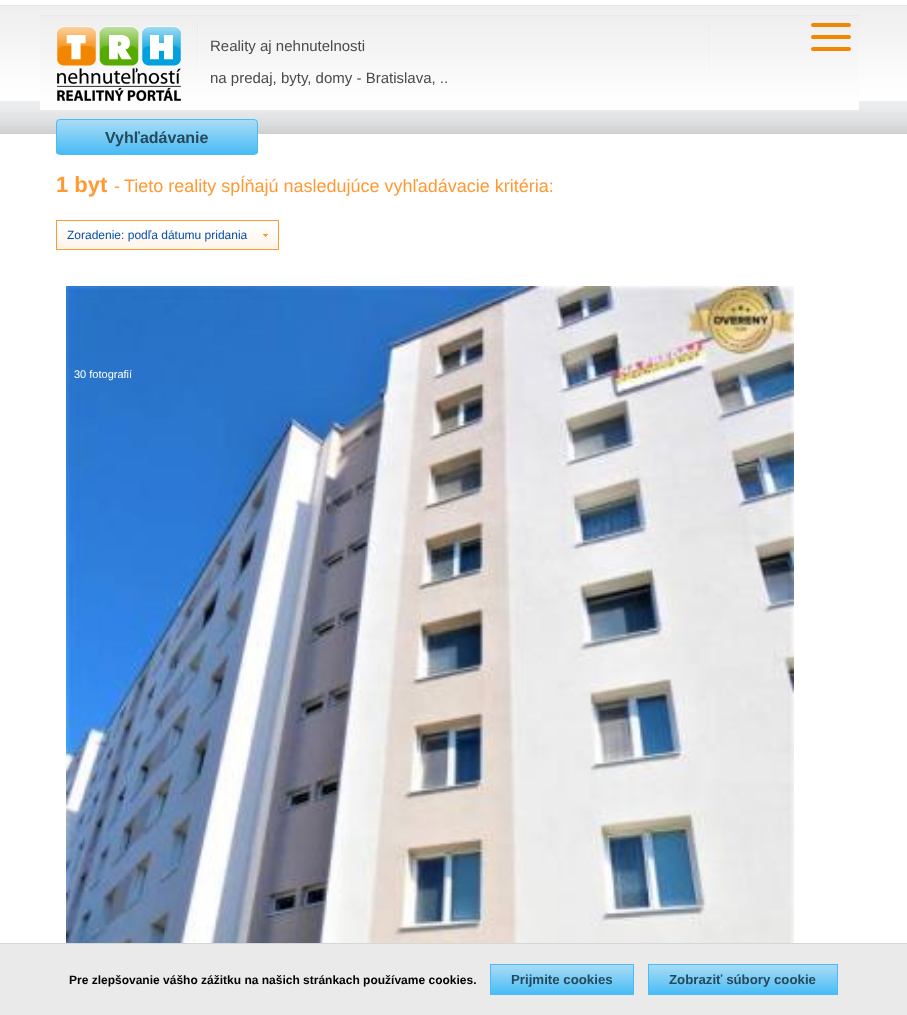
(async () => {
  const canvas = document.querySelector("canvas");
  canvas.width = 907;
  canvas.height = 1015;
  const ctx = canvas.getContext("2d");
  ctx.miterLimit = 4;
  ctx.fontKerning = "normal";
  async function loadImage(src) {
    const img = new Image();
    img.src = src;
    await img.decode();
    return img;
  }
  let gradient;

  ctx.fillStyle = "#ffffff";
  ctx.fillRect(0, 0, 907, 1015);
  ctx.drawImage(await loadImage("img/1.png"), 0, 5, 907, 129);
  ctx.drawImage(await loadImage("img/2.png"), 40, 15, 819, 95);
  ctx.drawImage(await loadImage("img/3.png"), 57, 26, 124, 75);
  ctx.fillStyle = "#f38600";
  ctx.beginPath();
  ctx.roundRect(811, 23, 40, 4, 2);
  ctx.fill();
  ctx.beginPath();
  ctx.roundRect(811, 35, 40, 4, 2);
  ctx.fill();
  ctx.beginPath();
  ctx.roundRect(811, 47, 40, 4, 2);
  ctx.fill();
  ctx.save();
  ctx.beginPath();
  ctx.roundRect(56, 119, 202, 36, 4);
  ctx.clip();
  gradient = ctx.createLinearGradient(157, 120, 157, 154);
  gradient.addColorStop(0, "#a9dcf5");
  gradient.addColorStop(1, "#49bcf5");
  ctx.fillStyle = gradient;
  ctx.fillRect(56, 120, 202, 34);
  ctx.restore();
  ctx.beginPath();
  ctx.roundRect(56.5, 119.5, 201, 35, 3.5);
  ctx.strokeStyle = "#49bcf5";
  ctx.stroke();
  ctx.drawImage(await loadImage("img/4.png"), 57, 228, 221, 21);
  ctx.strokeStyle = "#ff9933";
  ctx.strokeRect(56.5, 220.5, 222, 29);
  ctx.drawImage(await loadImage("img/5.png"), 66, 286, 728, 657);
  ctx.fillStyle = "#eaeaeb";
  ctx.fillRect(0, 944, 907, 71);
  ctx.fillStyle = "#d5d6d7";
  ctx.fillRect(0, 943, 907, 1);
  gradient = ctx.createLinearGradient(562, 965, 562, 994);
  gradient.addColorStop(0, "#a9dcf5");
  gradient.addColorStop(1, "#49bcf5");
  ctx.fillStyle = gradient;
  ctx.fillRect(491, 965, 142, 29);
  ctx.strokeStyle = "#49bcf5";
  ctx.strokeRect(490.5, 964.5, 143, 30);
  gradient = ctx.createLinearGradient(743, 965, 743, 994);
  gradient.addColorStop(0, "#a9dcf5");
  gradient.addColorStop(1, "#49bcf5");
  ctx.fillStyle = gradient;
  ctx.fillRect(649, 965, 188, 29);
  ctx.strokeRect(648.5, 964.5, 189, 30);
  ctx.font = "15px Liberation Sans";
  ctx.fillStyle = "#4a4a4a";
  ctx.fillText("Reality aj nehnutelnosti", 210, 51);
  ctx.fillText("na predaj, byty, domy - Bratislava, ..", 210, 83);
  ctx.font = "bold 16px Liberation Sans";
  ctx.fillStyle = "#25495c";
  ctx.fillText("Vyhľadávanie", 105, 143);
  ctx.font = "bold 22px Liberation Sans";
  ctx.fillStyle = "#ff9933";
  ctx.fillText("1 byt", 56, 192);
  ctx.font = "18px Liberation Sans";
  ctx.fillText("-", 114, 192);
  ctx.fillText("Tieto reality spĺňajú nasledujúce vyhľadávacie kritéria:", 124, 192);
  ctx.font = "12px Liberation Sans";
  ctx.fillStyle = "#0052ae";
  ctx.fillText("Zoradenie: podľa dátumu pridania", 67, 239);
  ctx.font = "11px Liberation Sans";
  ctx.fillStyle = "#ffffff";
  ctx.fillText("30 fotografií", 74, 378);
  ctx.font = "bold 12px Liberation Sans";
  ctx.fillStyle = "#000000";
  ctx.fillText("Pre zlepšovanie vášho zážitku na našich stránkach používame cookies.", 69, 984);
  ctx.font = "bold 13.25px Liberation Sans";
  ctx.fillStyle = "#25495c";
  ctx.fillText("Prijmite cookies", 511, 984);
  ctx.fillText("Zobraziť súbory cookie", 669, 984);
})();
